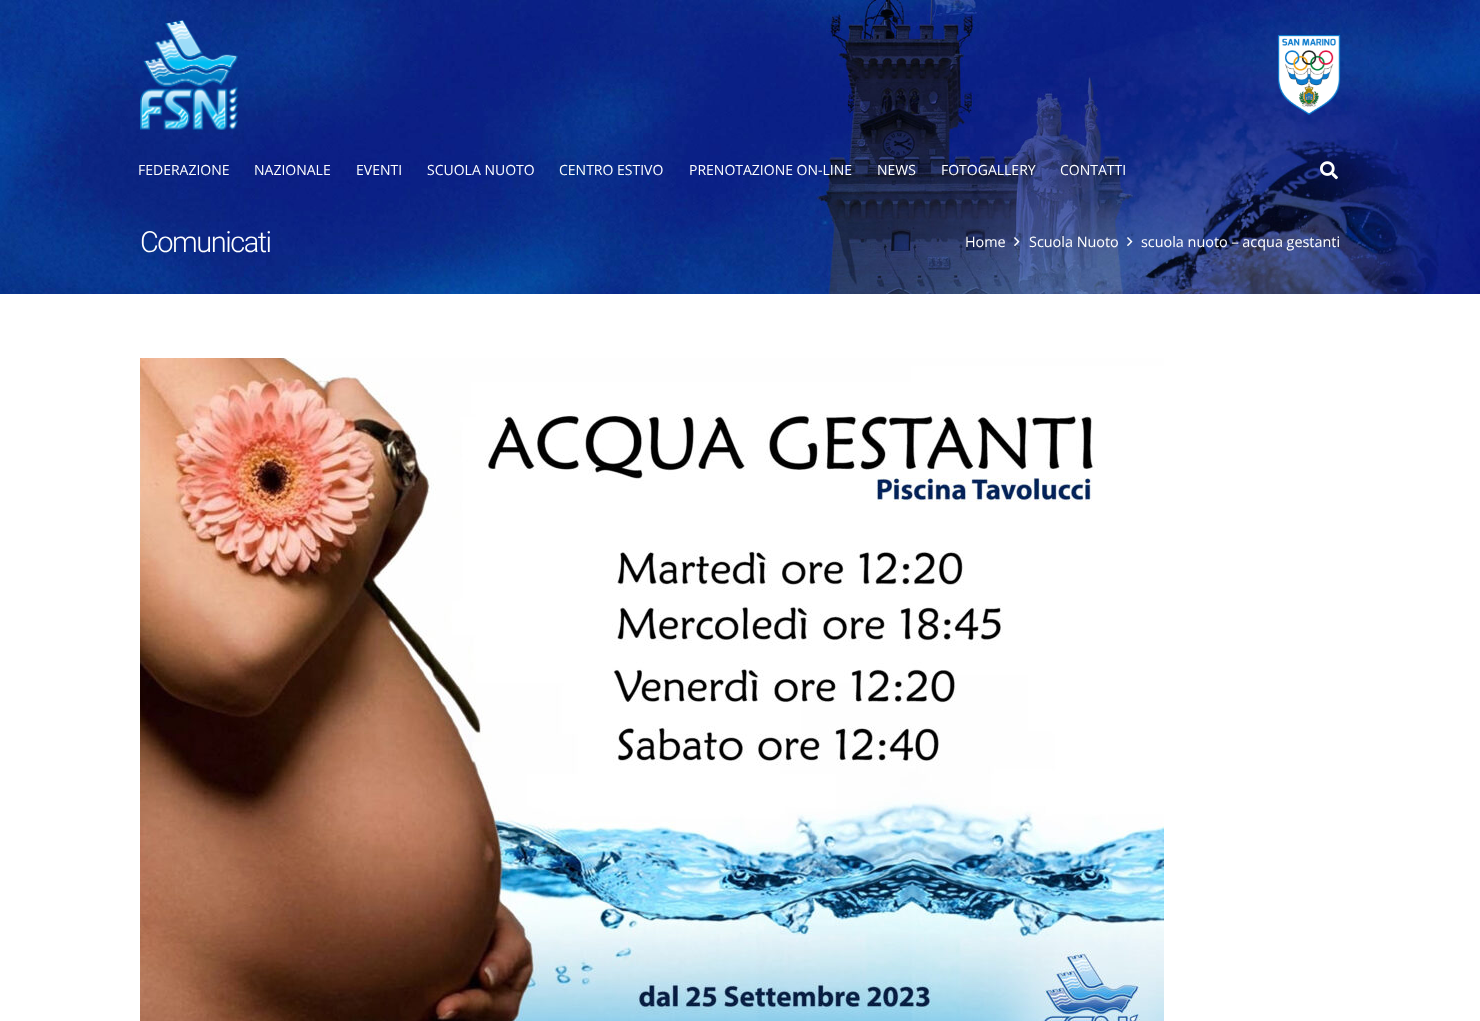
(async () => {
  const canvas = document.querySelector("canvas");
  canvas.width = 1480;
  canvas.height = 1021;
  const ctx = canvas.getContext("2d");
  ctx.miterLimit = 4;
  ctx.fontKerning = "normal";
  async function loadImage(src) {
    const img = new Image();
    img.src = src;
    await img.decode();
    return img;
  }

  ctx.fillStyle = "#ffffff";
  ctx.fillRect(0, 0, 1480, 1021);
  ctx.drawImage(await loadImage("img/4.png"), 0, 0, 1480, 294);
  ctx.drawImage(await loadImage("img/1.png"), 140, 20, 98, 110);
  ctx.drawImage(await loadImage("img/2.png"), 1278, 35, 63, 80);
  ctx.drawImage(await loadImage("img/3.png"), 1320, 161, 18, 19);
  ctx.drawImage(await loadImage("img/5.png"), 1014, 237, 6, 9);
  ctx.drawImage(await loadImage("img/6.png"), 1127, 237, 6, 9);
  ctx.drawImage(await loadImage("img/7.png"), 140, 358, 1024, 663);
  ctx.font = "14px Open Sans";
  for (const [text, x, y] of [
    ["FEDERAZIONE", 138, 175],
    ["NAZIONALE", 254, 175],
    ["EVENTI", 356, 175],
    ["SCUOLA NUOTO", 427, 175],
    ["CENTRO ESTIVO", 559, 175],
    ["PRENOTAZIONE ON-LINE", 689, 175],
    ["NEWS", 877, 175],
    ["FOTOGALLERY", 941, 175],
    ["CONTATTI", 1060, 175],
  ]) {
    ctx.fillText(text, x, y);
  }
  ctx.letterSpacing = "-1.5px";
  ctx.font = "300 29px Roboto";
  ctx.fillText("Comunicati", 140, 252);
  ctx.letterSpacing = "0px";
  ctx.font = "14.4px Open Sans";
  for (const [text, x, y] of [
    ["Home", 965, 247],
    ["Scuola Nuoto", 1029, 247],
    ["scuola nuoto – acqua gestanti", 1141, 247],
  ]) {
    ctx.fillText(text, x, y);
  }
})();
